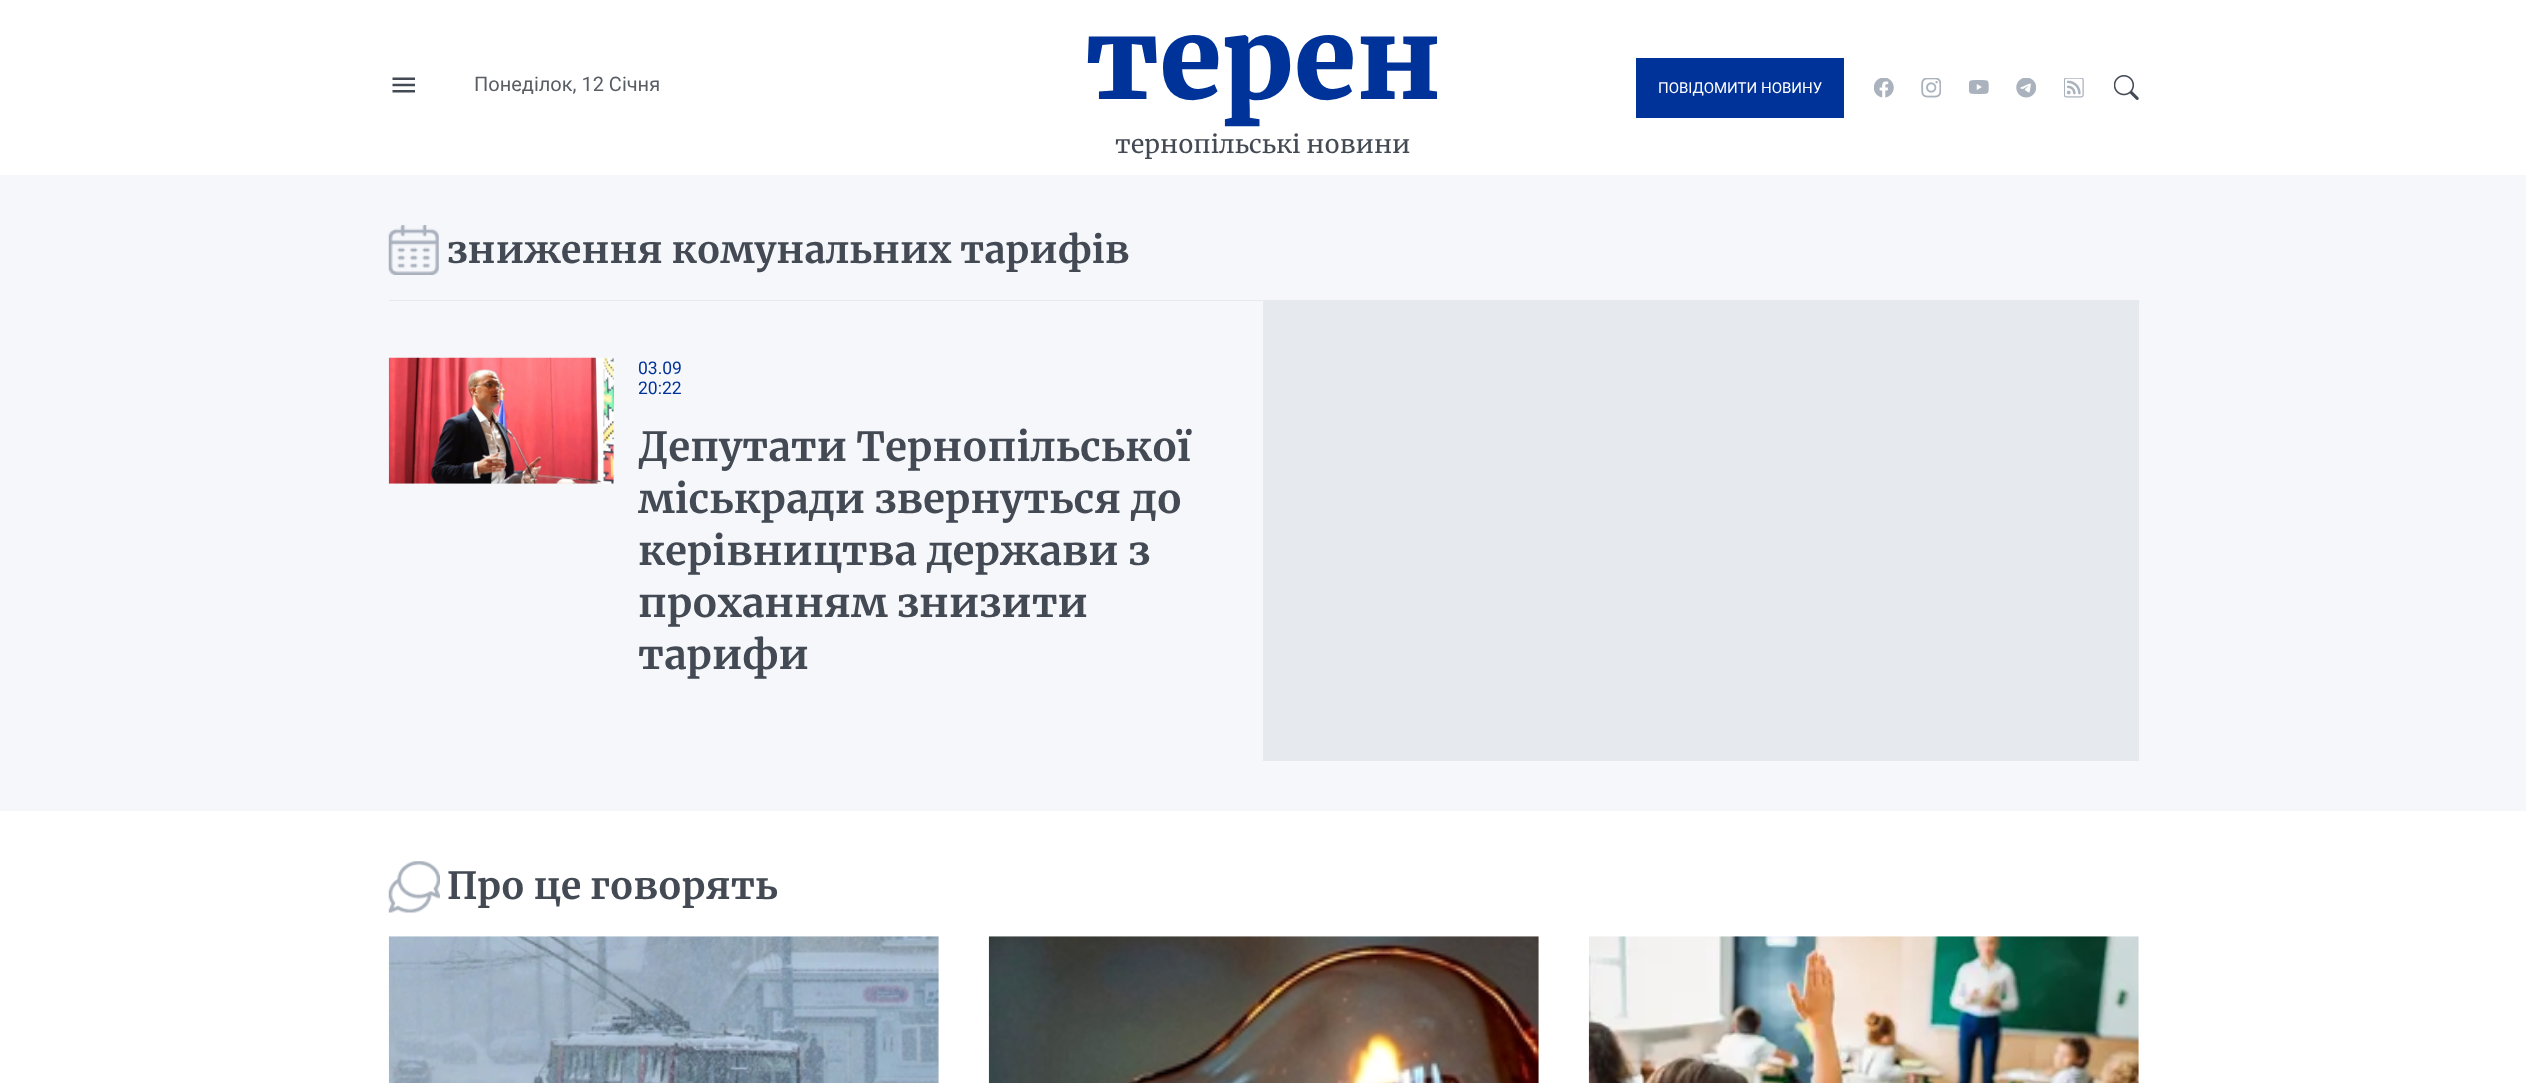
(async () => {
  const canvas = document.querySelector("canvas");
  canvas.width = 2526;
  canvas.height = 1083;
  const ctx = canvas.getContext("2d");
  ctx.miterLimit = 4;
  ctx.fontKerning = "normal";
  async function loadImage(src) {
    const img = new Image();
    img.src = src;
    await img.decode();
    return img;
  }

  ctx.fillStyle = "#ffffff";
  ctx.fillRect(0, 0, 2526, 1083);
  ctx.drawImage(await loadImage("img/1.png"), 392, 77, 23, 16);
  ctx.fillStyle = "#003399";
  ctx.fillRect(1636, 58, 208, 60);
  ctx.drawImage(await loadImage("img/2.png"), 1874, 78, 20, 20);
  ctx.drawImage(await loadImage("img/3.png"), 1921, 78, 20, 20);
  ctx.drawImage(await loadImage("img/4.png"), 1969, 80, 20, 15);
  ctx.drawImage(await loadImage("img/5.png"), 2016, 78, 20, 20);
  ctx.drawImage(await loadImage("img/6.png"), 2064, 78, 20, 20);
  ctx.drawImage(await loadImage("img/7.png"), 2114, 75, 25, 25);
  ctx.fillStyle = "#f6f7fb";
  ctx.fillRect(0, 175, 2526, 636);
  ctx.drawImage(await loadImage("img/8.png"), 388, 225, 51, 50);
  ctx.fillStyle = "#e6e9ee";
  ctx.fillRect(389, 300, 1750, 461);
  ctx.fillStyle = "#f6f7fb";
  ctx.fillRect(389, 301, 874, 460);
  ctx.drawImage(await loadImage("img/9.png"), 388, 357, 226, 127);
  ctx.drawImage(await loadImage("img/10.png"), 388, 861, 52, 52);
  ctx.drawImage(await loadImage("img/11.png"), 388, 936, 551, 147);
  ctx.drawImage(await loadImage("img/12.png"), 988, 936, 551, 147);
  ctx.drawImage(await loadImage("img/13.png"), 1588, 936, 551, 147);
  ctx.font = "20px Roboto";
  ctx.fillStyle = "#595e64";
  ctx.fillText("Понеділок, 12 Січня", 474, 91);
  ctx.font = "900 112.5px Merriweather";
  ctx.fillStyle = "#003399";
  ctx.fillText("терен", 1085, 99);
  ctx.font = "25px Merriweather";
  ctx.fillStyle = "#434a54";
  ctx.fillText("тернопільські новини", 1115, 153);
  ctx.font = "15px Roboto";
  ctx.fillStyle = "#ffffff";
  ctx.fillText("ПОВІДОМИТИ НОВИНУ", 1658, 93);
  ctx.font = "bold 37.5px Merriweather";
  ctx.fillStyle = "#434a54";
  ctx.fillText("зниження комунальних тарифів", 447, 263);
  ctx.font = "17.5px Roboto";
  ctx.fillStyle = "#003399";
  ctx.fillText("03.09", 638, 374);
  ctx.fillText("20:22", 638, 394);
  ctx.font = "bold 40px Merriweather";
  ctx.fillStyle = "#434a54";
  for (const [text, x, y] of [
    ["Депутати Тернопільської", 638, 461],
    ["міськради звернуться до", 638, 513],
    ["керівництва держави з", 638, 565],
    ["проханням знизити", 638, 617],
    ["тарифи", 638, 669],
  ]) {
    ctx.fillText(text, x, y);
  }
  ctx.font = "bold 37.5px Merriweather";
  ctx.fillText("Про це говорять", 447, 899);
})();
